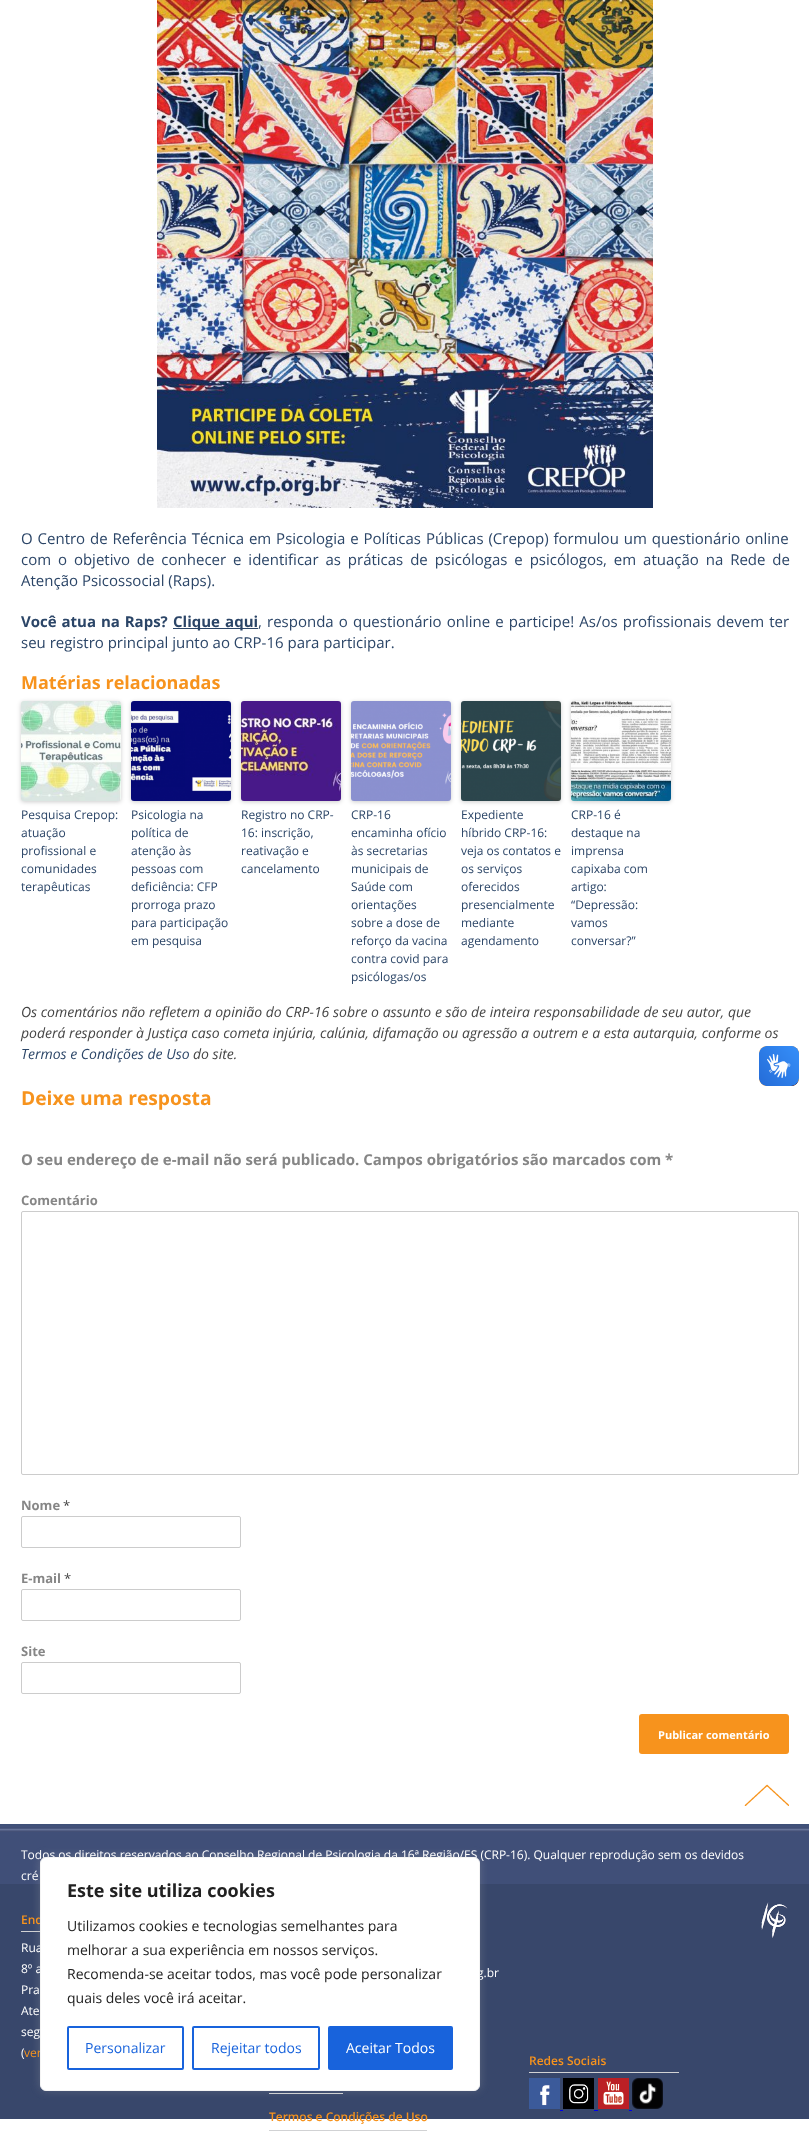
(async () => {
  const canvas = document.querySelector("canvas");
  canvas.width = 809;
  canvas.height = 2131;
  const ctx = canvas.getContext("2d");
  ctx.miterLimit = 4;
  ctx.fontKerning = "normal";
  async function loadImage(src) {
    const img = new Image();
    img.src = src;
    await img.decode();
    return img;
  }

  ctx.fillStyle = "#ffffff";
  ctx.fillRect(0, 0, 809, 2131);
  ctx.drawImage(await loadImage("img/1.png"), 157, 0, 496, 508);
  ctx.fillStyle = "#2b4567";
  ctx.fillRect(173, 628, 85, 1);
  ctx.fillStyle = "rgba(0, 0, 0, 0.2)";
  ctx.filter = "blur(2px)";
  ctx.beginPath();
  ctx.roundRect(21, 702, 100, 100, 3);
  ctx.fill();
  ctx.filter = "none";
  ctx.drawImage(await loadImage("img/2.png"), 21, 701, 100, 100);
  ctx.filter = "blur(2px)";
  ctx.beginPath();
  ctx.roundRect(131, 702, 100, 100, 3);
  ctx.fill();
  ctx.filter = "none";
  ctx.drawImage(await loadImage("img/3.png"), 131, 701, 100, 100);
  ctx.filter = "blur(2px)";
  ctx.beginPath();
  ctx.roundRect(241, 702, 100, 100, 3);
  ctx.fill();
  ctx.filter = "none";
  ctx.drawImage(await loadImage("img/4.png"), 241, 701, 100, 100);
  ctx.filter = "blur(2px)";
  ctx.beginPath();
  ctx.roundRect(351, 702, 100, 100, 3);
  ctx.fill();
  ctx.filter = "none";
  ctx.drawImage(await loadImage("img/5.png"), 351, 701, 100, 100);
  ctx.filter = "blur(2px)";
  ctx.beginPath();
  ctx.roundRect(461, 702, 100, 100, 3);
  ctx.fill();
  ctx.filter = "none";
  ctx.drawImage(await loadImage("img/6.png"), 461, 701, 100, 100);
  ctx.filter = "blur(2px)";
  ctx.beginPath();
  ctx.roundRect(571, 702, 100, 100, 3);
  ctx.fill();
  ctx.filter = "none";
  ctx.drawImage(await loadImage("img/7.png"), 571, 701, 100, 100);
  ctx.beginPath();
  ctx.roundRect(21.5, 1211.5, 777, 263, 1.5);
  ctx.strokeStyle = "#cccccc";
  ctx.stroke();
  ctx.beginPath();
  ctx.roundRect(21.5, 1516.5, 219, 31, 1.5);
  ctx.stroke();
  ctx.beginPath();
  ctx.roundRect(21.5, 1589.5, 219, 31, 1.5);
  ctx.stroke();
  ctx.beginPath();
  ctx.roundRect(21.5, 1662.5, 219, 31, 1.5);
  ctx.stroke();
  ctx.fillStyle = "#f7931d";
  ctx.beginPath();
  ctx.roundRect(639, 1714, 150, 40, 3);
  ctx.fill();
  ctx.beginPath();
  ctx.roundRect(759, 1046, 40, 40, 8);
  ctx.fill();
  ctx.drawImage(await loadImage("img/8.png"), 759, 1046, 40, 40);
  ctx.drawImage(await loadImage("img/9.png"), 759, 1046, 40, 40);
  ctx.drawImage(await loadImage("img/10.png"), 744, 1784, 45, 22);
  ctx.drawImage(await loadImage("img/11.png"), 0, 1824, 809, 60);
  ctx.fillStyle = "#38476b";
  ctx.fillRect(0, 1884, 809, 235);
  ctx.drawImage(await loadImage("img/12.png"), 761, 1902, 27, 36);
  ctx.fillStyle = "#d1d2d4";
  ctx.fillRect(21, 1931, 19, 1);
  ctx.fillRect(529, 2072, 150, 1);
  ctx.drawImage(await loadImage("img/13.png"), 529, 2078, 31, 31);
  ctx.drawImage(await loadImage("img/14.png"), 563, 2078, 31, 31);
  ctx.drawImage(await loadImage("img/15.png"), 598, 2078, 31, 31);
  ctx.drawImage(await loadImage("img/16.png"), 632, 2078, 31, 31);
  for (const [x, y, w, h, color] of [
    [560, 2110, 3, 1, "#0000ee"],
    [594, 2110, 4, 1, "#0000ee"],
    [629, 2110, 3, 1, "#0000ee"],
    [269, 2093, 74, 1, "#d1d2d4"],
    [269, 2130, 158, 1, "#d1d2d4"],
  ]) {
    ctx.fillStyle = color;
    ctx.fillRect(x, y, w, h);
  }
  ctx.fillStyle = "rgba(172, 171, 171, 0.3)";
  ctx.filter = "blur(5px)";
  ctx.beginPath();
  ctx.roundRect(40, 1856, 440, 234, 6);
  ctx.fill();
  ctx.filter = "none";
  ctx.wordSpacing = "1px";
  ctx.font = "15px Open Sans";
  ctx.fillStyle = "#2b4567";
  ctx.fillText("O Centro de Referência Técnica em Psicologia e Políticas Públicas (Crepop) formulou um questionário online", 21, 544);
  ctx.wordSpacing = "3px";
  ctx.fillText("com o objetivo de conhecer e identificar as práticas de psicólogas e psicólogos, em atuação na Rede de", 21, 565);
  ctx.wordSpacing = "0px";
  ctx.fillText("Atenção Psicossocial (Raps).", 21, 586);
  ctx.wordSpacing = "1px";
  ctx.font = "bold 15px Open Sans";
  ctx.fillText("Você atua na Raps?", 21, 627);
  ctx.wordSpacing = "1.25px";
  ctx.fillText("Clique aqui", 173, 627);
  ctx.font = "15px Open Sans";
  ctx.fillText(", responda o questionário online e participe! As/os profissionais devem ter", 258, 627);
  ctx.wordSpacing = "0px";
  ctx.fillText("seu registro principal junto ao CRP-16 para participar.", 21, 648);
  ctx.font = "bold 18px Open Sans";
  ctx.fillStyle = "#f7931d";
  ctx.fillText("Matérias relacionadas", 21, 689);
  ctx.font = "12px Open Sans";
  ctx.fillStyle = "#2b4567";
  for (const [text, x, y] of [
    ["Pesquisa Crepop:", 21, 819],
    ["atuação", 21, 837],
    ["profissional e", 21, 855],
    ["comunidades", 21, 873],
    ["terapêuticas", 21, 891],
    ["Psicologia na", 131, 819],
    ["política de", 131, 837],
    ["atenção às", 131, 855],
    ["pessoas com", 131, 873],
    ["deficiência: CFP", 131, 891],
    ["prorroga prazo", 131, 909],
    ["para participação", 131, 927],
    ["em pesquisa", 131, 945],
    ["Registro no CRP-", 241, 819],
    ["16: inscrição,", 241, 837],
    ["reativação e", 241, 855],
    ["cancelamento", 241, 873],
    ["CRP-16", 351, 819],
    ["encaminha ofício", 351, 837],
    ["às secretarias", 351, 855],
    ["municipais de", 351, 873],
    ["Saúde com", 351, 891],
    ["orientações", 351, 909],
    ["sobre a dose de", 351, 927],
    ["reforço da vacina", 351, 945],
    ["contra covid para", 351, 963],
    ["psicólogas/os", 351, 981],
    ["Expediente", 461, 819],
    ["híbrido CRP-16:", 461, 837],
    ["veja os contatos e", 461, 855],
    ["os serviços", 461, 873],
    ["oferecidos", 461, 891],
    ["presencialmente", 461, 909],
    ["mediante", 461, 927],
    ["agendamento", 461, 945],
    ["CRP-16 é", 571, 819],
    ["destaque na", 571, 837],
    ["imprensa", 571, 855],
    ["capixaba com", 571, 873],
    ["artigo:", 571, 891],
    ["“Depressão:", 571, 909],
    ["vamos", 571, 927],
    ["conversar?”", 571, 945],
  ]) {
    ctx.fillText(text, x, y);
  }
  ctx.font = "italic 14px Open Sans";
  ctx.fillStyle = "#444444";
  ctx.fillText("Os comentários não refletem a opinião do CRP-16 sobre o assunto e são de inteira responsabilidade de seu autor, que", 21, 1017);
  ctx.fillText("poderá responder à Justiça caso cometa injúria, calúnia, difamação ou agressão a outrem e a esta autarquia, conforme os", 21, 1038);
  ctx.fillStyle = "#2b4567";
  ctx.fillText("Termos e Condições de Uso", 21, 1059);
  ctx.fillStyle = "#444444";
  ctx.fillText("do site.", 193, 1059);
  ctx.font = "bold 19.25px Open Sans";
  ctx.fillStyle = "#f7931d";
  ctx.fillText("Deixe uma resposta", 21, 1105);
  ctx.font = "bold 15px Open Sans";
  ctx.fillStyle = "#868686";
  ctx.fillText("O seu endereço de e-mail não será publicado. Campos obrigatórios são marcados com *", 21, 1165);
  ctx.font = "bold 13px Open Sans";
  ctx.fillText("Comentário", 21, 1205);
  ctx.fillText("Nome", 21, 1510);
  ctx.font = "13px Open Sans";
  ctx.fillStyle = "#444444";
  ctx.fillText("*", 63, 1510);
  ctx.font = "bold 13px Open Sans";
  ctx.fillStyle = "#868686";
  ctx.fillText("E-mail", 21, 1583);
  ctx.font = "13px Open Sans";
  ctx.fillStyle = "#444444";
  ctx.fillText("*", 64, 1583);
  ctx.font = "bold 13px Open Sans";
  ctx.fillStyle = "#868686";
  ctx.fillText("Site", 21, 1656);
  ctx.font = "bold 11px Open Sans";
  ctx.fillStyle = "#ffffff";
  ctx.fillText("Publicar comentário", 658, 1739);
  ctx.font = "12px Open Sans";
  ctx.fillText("Todos os direitos reservados ao Conselho Regional de Psicologia da 16ª Região/ES (CRP-16). Qualquer reprodução sem os devidos", 21, 1859);
  ctx.fillText("cré", 21, 1880);
  ctx.font = "600 12px Open Sans";
  ctx.fillStyle = "#f7931d";
  ctx.fillText("End", 21, 1924);
  ctx.font = "12px Open Sans";
  ctx.fillStyle = "#ffffff";
  for (const [text, x, y] of [
    ["Rua", 21, 1952],
    ["8º a", 21, 1973],
    ["Pra", 21, 1994],
    ["Ate", 21, 2015],
    ["seg", 21, 2036],
    ["(", 21, 2057],
  ]) {
    ctx.fillText(text, x, y);
  }
  ctx.fillStyle = "#f7931d";
  ctx.fillText("ver", 24, 2057);
  ctx.fillStyle = "#ffffff";
  ctx.fillText("g.br", 477, 1977);
  ctx.font = "600 12px Open Sans";
  ctx.fillStyle = "#f7931d";
  ctx.fillText("Redes Sociais", 529, 2065);
  ctx.fillText("Termos e Condições de Uso", 269, 2121);
  ctx.fillStyle = "#ffffff";
  ctx.beginPath();
  ctx.roundRect(40.5, 1857.5, 439, 233, 5.5);
  ctx.fill();
  ctx.strokeStyle = "#f4f4f4";
  ctx.stroke();
  ctx.font = "bold 18px Open Sans";
  ctx.fillStyle = "#212121";
  ctx.fillText("Este site utiliza cookies", 67, 1897);
  ctx.font = "14px Open Sans";
  for (const [text, x, y] of [
    ["Utilizamos cookies e tecnologias semelhantes para", 67, 1931],
    ["melhorar a sua experiência em nossos serviços.", 67, 1955],
    ["Recomenda-se aceitar todos, mas você pode personalizar", 67, 1979],
    ["quais deles você irá aceitar.", 67, 2003],
  ]) {
    ctx.fillText(text, x, y);
  }
  ctx.beginPath();
  ctx.roundRect(68, 2027, 115, 42, 1);
  ctx.strokeStyle = "#1863dc";
  ctx.lineWidth = 2;
  ctx.stroke();
  ctx.fillStyle = "#1863dc";
  ctx.fillText("Personalizar", 85, 2053);
  ctx.beginPath();
  ctx.roundRect(193, 2027, 126, 42, 1);
  ctx.stroke();
  ctx.fillText("Rejeitar todos", 211, 2053);
  ctx.beginPath();
  ctx.roundRect(329, 2027, 123, 42, 1);
  ctx.fill();
  ctx.stroke();
  ctx.fillStyle = "#ffffff";
  ctx.fillText("Aceitar Todos", 346, 2053);
})();
